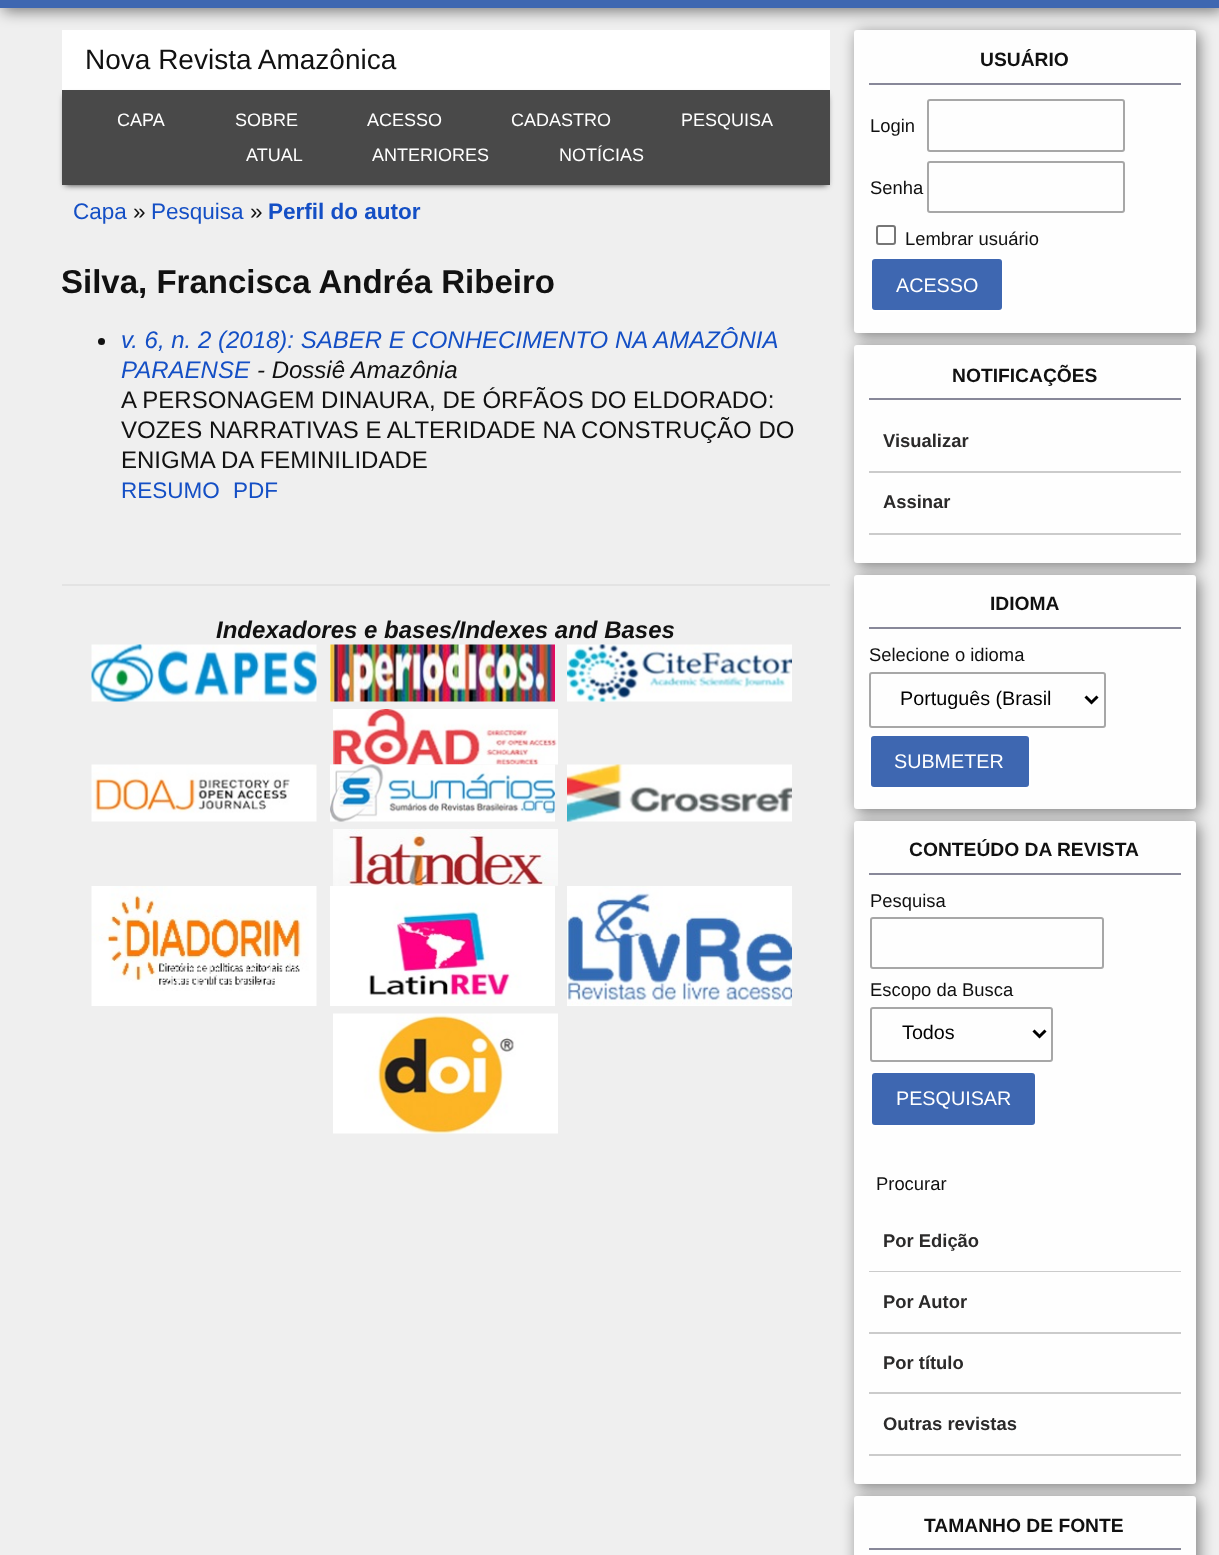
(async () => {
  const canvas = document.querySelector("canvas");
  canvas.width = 1219;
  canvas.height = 1555;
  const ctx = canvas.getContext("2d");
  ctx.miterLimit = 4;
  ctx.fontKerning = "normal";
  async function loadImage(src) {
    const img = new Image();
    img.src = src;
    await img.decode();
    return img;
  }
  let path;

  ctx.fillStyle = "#efefef";
  ctx.fillRect(0, 0, 1219, 1555);
  ctx.fillStyle = "rgba(0, 0, 0, 0.5)";
  ctx.filter = "blur(7.5px)";
  ctx.beginPath();
  ctx.rect(3, -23, 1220, 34);
  ctx.fill();
  ctx.filter = "none";
  ctx.fillStyle = "#3e67b1";
  ctx.fillRect(0, 0, 1219, 8);
  ctx.fillStyle = "#ffffff";
  ctx.fillRect(62, 30, 768, 60);
  ctx.fillStyle = "#333333";
  ctx.filter = "blur(3px)";
  ctx.beginPath();
  ctx.rect(65, 96, 762, 89);
  ctx.fill();
  ctx.filter = "none";
  ctx.fillStyle = "#494949";
  ctx.fillRect(62, 90, 768, 95);
  ctx.fillStyle = "#111111";
  ctx.beginPath();
  ctx.arc(101.5, 341.5, 3.5, 0, Math.PI * 2);
  ctx.fill();
  ctx.fillStyle = "#e3e3e3";
  ctx.fillRect(62, 584, 768, 2);
  ctx.drawImage(await loadImage("img/1.png"), 91, 644, 226, 58);
  ctx.drawImage(await loadImage("img/2.png"), 330, 644, 225, 58);
  ctx.drawImage(await loadImage("img/3.png"), 567, 644, 225, 58);
  ctx.drawImage(await loadImage("img/4.png"), 333, 709, 225, 56);
  ctx.drawImage(await loadImage("img/5.png"), 91, 764, 226, 58);
  ctx.drawImage(await loadImage("img/6.png"), 330, 764, 225, 58);
  ctx.drawImage(await loadImage("img/7.png"), 567, 764, 225, 58);
  ctx.drawImage(await loadImage("img/8.png"), 333, 829, 225, 57);
  ctx.drawImage(await loadImage("img/9.png"), 91, 886, 226, 120);
  ctx.drawImage(await loadImage("img/10.png"), 330, 886, 225, 120);
  ctx.drawImage(await loadImage("img/11.png"), 567, 886, 225, 120);
  ctx.drawImage(await loadImage("img/12.png"), 333, 1013, 225, 121);
  ctx.fillStyle = "rgba(0, 0, 0, 0.48)";
  ctx.filter = "blur(7.5px)";
  ctx.beginPath();
  ctx.roundRect(857, 33, 342, 303, 3);
  ctx.fill();
  ctx.filter = "none";
  ctx.fillStyle = "#fefefe";
  ctx.beginPath();
  ctx.roundRect(854, 30, 342, 303, 3);
  ctx.fill();
  ctx.fillStyle = "#888899";
  ctx.fillRect(869, 83, 312, 2);
  ctx.beginPath();
  ctx.roundRect(928, 100, 196, 51, 2);
  ctx.strokeStyle = "#a7a7a7";
  ctx.lineWidth = 2;
  ctx.stroke();
  ctx.beginPath();
  ctx.roundRect(928, 162, 196, 50, 2);
  ctx.stroke();
  ctx.beginPath();
  ctx.roundRect(877, 226, 18, 18, 2);
  ctx.strokeStyle = "#767676";
  ctx.stroke();
  ctx.fillStyle = "#3e67b1";
  ctx.beginPath();
  ctx.roundRect(871, 258, 132, 53, 4);
  ctx.fill();
  ctx.strokeStyle = "#ffffff";
  ctx.stroke();
  ctx.fillStyle = "rgba(0, 0, 0, 0.48)";
  ctx.filter = "blur(7.5px)";
  ctx.beginPath();
  ctx.roundRect(857, 348, 342, 218, 3);
  ctx.fill();
  ctx.filter = "none";
  ctx.fillStyle = "#fefefe";
  ctx.beginPath();
  ctx.roundRect(854, 345, 342, 218, 3);
  ctx.fill();
  for (const [x, y, w, h, color] of [
    [869, 398, 312, 2, "#888899"],
    [869, 471, 312, 2, "#cbcbcb"],
    [869, 533, 312, 2, "#cbcbcb"],
  ]) {
    ctx.fillStyle = color;
    ctx.fillRect(x, y, w, h);
  }
  ctx.fillStyle = "rgba(0, 0, 0, 0.48)";
  ctx.filter = "blur(7.5px)";
  ctx.beginPath();
  ctx.roundRect(857, 578, 342, 234, 3);
  ctx.fill();
  ctx.filter = "none";
  ctx.fillStyle = "#fefefe";
  ctx.beginPath();
  ctx.roundRect(854, 575, 342, 234, 3);
  ctx.fill();
  ctx.fillStyle = "#888899";
  ctx.fillRect(869, 627, 312, 2);
  ctx.beginPath();
  ctx.roundRect(870, 673, 235, 54, 2);
  ctx.strokeStyle = "#a7a7a7";
  ctx.stroke();
  path = new Path2D("M1085.5 696.5L1091.5 702.5L1097.5 696.5");
  ctx.strokeStyle = "#000000";
  ctx.lineWidth = 3;
  ctx.stroke(path);
  ctx.fillStyle = "#3e67b1";
  ctx.beginPath();
  ctx.roundRect(870, 735, 160, 53, 4);
  ctx.fill();
  ctx.strokeStyle = "#ffffff";
  ctx.lineWidth = 2;
  ctx.stroke();
  ctx.fillStyle = "rgba(0, 0, 0, 0.48)";
  ctx.filter = "blur(7.5px)";
  ctx.beginPath();
  ctx.roundRect(857, 824, 342, 663, 3);
  ctx.fill();
  ctx.filter = "none";
  ctx.fillStyle = "#fefefe";
  ctx.beginPath();
  ctx.roundRect(854, 821, 342, 663, 3);
  ctx.fill();
  ctx.fillStyle = "#888899";
  ctx.fillRect(869, 873, 312, 2);
  ctx.beginPath();
  ctx.roundRect(871, 918, 232, 50, 2);
  ctx.strokeStyle = "#a7a7a7";
  ctx.stroke();
  ctx.beginPath();
  ctx.roundRect(871, 1008, 181, 53, 2);
  ctx.stroke();
  path = new Path2D("M1033.5 1030.5L1039.5 1036.5L1045.5 1030.5");
  ctx.strokeStyle = "#000000";
  ctx.lineWidth = 3;
  ctx.stroke(path);
  ctx.fillStyle = "#3e67b1";
  ctx.beginPath();
  ctx.roundRect(871, 1072, 165, 54, 4);
  ctx.fill();
  ctx.strokeStyle = "#ffffff";
  ctx.lineWidth = 2;
  ctx.stroke();
  for (const [x, y, w, h, color] of [
    [869, 1271, 312, 1, "#cbcbcb"],
    [869, 1332, 312, 2, "#cbcbcb"],
    [869, 1392, 312, 2, "#cbcbcb"],
    [869, 1454, 312, 2, "#cbcbcb"],
  ]) {
    ctx.fillStyle = color;
    ctx.fillRect(x, y, w, h);
  }
  ctx.fillStyle = "rgba(0, 0, 0, 0.48)";
  ctx.filter = "blur(7.5px)";
  ctx.beginPath();
  ctx.roundRect(857, 1499, 342, 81, 3);
  ctx.fill();
  ctx.filter = "none";
  ctx.fillStyle = "#fefefe";
  ctx.beginPath();
  ctx.roundRect(854, 1496, 342, 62, 3);
  ctx.fill();
  ctx.fillStyle = "#888899";
  ctx.fillRect(869, 1548, 312, 2);
  ctx.font = "28px Liberation Sans";
  ctx.fillStyle = "#111111";
  ctx.fillText("Nova Revista Amazônica", 85, 69);
  ctx.font = "18px Liberation Sans";
  ctx.fillStyle = "#ffffff";
  for (const [text, x, y] of [
    ["CAPA", 117, 126],
    ["SOBRE", 235, 126],
    ["ACESSO", 367, 126],
    ["CADASTRO", 511, 126],
    ["PESQUISA", 681, 126],
    ["ATUAL", 246, 161],
    ["ANTERIORES", 372, 161],
    ["NOTÍCIAS", 559, 161],
  ]) {
    ctx.fillText(text, x, y);
  }
  ctx.font = "22.5px Liberation Sans";
  ctx.fillStyle = "#144fc5";
  ctx.fillText("Capa", 73, 219);
  ctx.fillStyle = "#111111";
  ctx.fillText("»", 133, 219);
  ctx.fillStyle = "#144fc5";
  ctx.fillText("Pesquisa", 151, 219);
  ctx.fillStyle = "#111111";
  ctx.fillText("»", 250, 219);
  ctx.font = "bold 22.5px Liberation Sans";
  ctx.fillStyle = "#144fc5";
  ctx.fillText("Perfil do autor", 268, 219);
  ctx.font = "bold 33px Liberation Sans";
  ctx.fillStyle = "#111111";
  ctx.fillText("Silva, Francisca Andréa Ribeiro", 61, 293);
  ctx.font = "italic 24px Liberation Sans";
  ctx.fillStyle = "#144fc5";
  ctx.fillText("v. 6, n. 2 (2018): SABER E CONHECIMENTO NA AMAZÔNIA", 121, 348);
  ctx.fillText("PARAENSE", 121, 378);
  ctx.fillStyle = "#111111";
  ctx.fillText("- Dossiê Amazônia", 257, 378);
  ctx.font = "24px Liberation Sans";
  for (const [text, x, y] of [
    ["A PERSONAGEM DINAURA, DE ÓRFÃOS DO ELDORADO:", 121, 408],
    ["VOZES NARRATIVAS E ALTERIDADE NA CONSTRUÇÃO DO", 121, 438],
    ["ENIGMA DA FEMINILIDADE", 121, 468],
  ]) {
    ctx.fillText(text, x, y);
  }
  ctx.font = "22.5px Liberation Sans";
  ctx.fillStyle = "#144fc5";
  ctx.fillText("RESUMO", 121, 498);
  ctx.fillText("PDF", 233, 498);
  ctx.font = "italic bold 24px Liberation Sans";
  ctx.fillStyle = "#111111";
  ctx.fillText("Indexadores e bases/Indexes and Bases", 216, 638);
  ctx.font = "bold 19.25px Liberation Sans";
  ctx.fillText("USUÁRIO", 980, 66);
  ctx.font = "18.4px Liberation Sans";
  for (const [text, x, y] of [
    ["Login", 870, 132],
    ["Senha", 870, 194],
    ["Lembrar usuário", 905, 245],
  ]) {
    ctx.fillText(text, x, y);
  }
  ctx.font = "19.75px Liberation Sans";
  ctx.fillStyle = "#ffffff";
  ctx.fillText("ACESSO", 896, 292);
  ctx.font = "bold 19.25px Liberation Sans";
  ctx.fillStyle = "#111111";
  ctx.fillText("NOTIFICAÇÕES", 952, 382);
  ctx.font = "bold 18.4px Liberation Sans";
  ctx.fillStyle = "#2b2a2a";
  ctx.fillText("Visualizar", 883, 447);
  ctx.fillText("Assinar", 883, 508);
  ctx.font = "bold 19.25px Liberation Sans";
  ctx.fillStyle = "#111111";
  ctx.fillText("IDIOMA", 990, 610);
  ctx.font = "18.4px Liberation Sans";
  ctx.fillText("Selecione o idioma", 869, 661);
  ctx.font = "19.75px Liberation Sans";
  ctx.fillStyle = "#000000";
  ctx.fillText("Português (Brasil", 900, 705);
  ctx.fillStyle = "#ffffff";
  ctx.fillText("SUBMETER", 894, 768);
  ctx.font = "bold 19.25px Liberation Sans";
  ctx.fillStyle = "#111111";
  ctx.fillText("CONTEÚDO DA REVISTA", 909, 856);
  ctx.font = "18.4px Liberation Sans";
  ctx.fillText("Pesquisa", 870, 907);
  ctx.fillText("Escopo da Busca", 870, 996);
  ctx.font = "19.75px Liberation Sans";
  ctx.fillStyle = "#000000";
  ctx.fillText("Todos", 902, 1039);
  ctx.fillStyle = "#ffffff";
  ctx.fillText("PESQUISAR", 896, 1105);
  ctx.font = "18.4px Liberation Sans";
  ctx.fillStyle = "#111111";
  ctx.fillText("Procurar", 876, 1190);
  ctx.font = "bold 18.4px Liberation Sans";
  ctx.fillStyle = "#2b2a2a";
  for (const [text, x, y] of [
    ["Por Edição", 883, 1247],
    ["Por Autor", 883, 1308],
    ["Por título", 883, 1369],
    ["Outras revistas", 883, 1430],
  ]) {
    ctx.fillText(text, x, y);
  }
  ctx.font = "bold 19.25px Liberation Sans";
  ctx.fillStyle = "#111111";
  ctx.fillText("TAMANHO DE FONTE", 924, 1532);
})();
